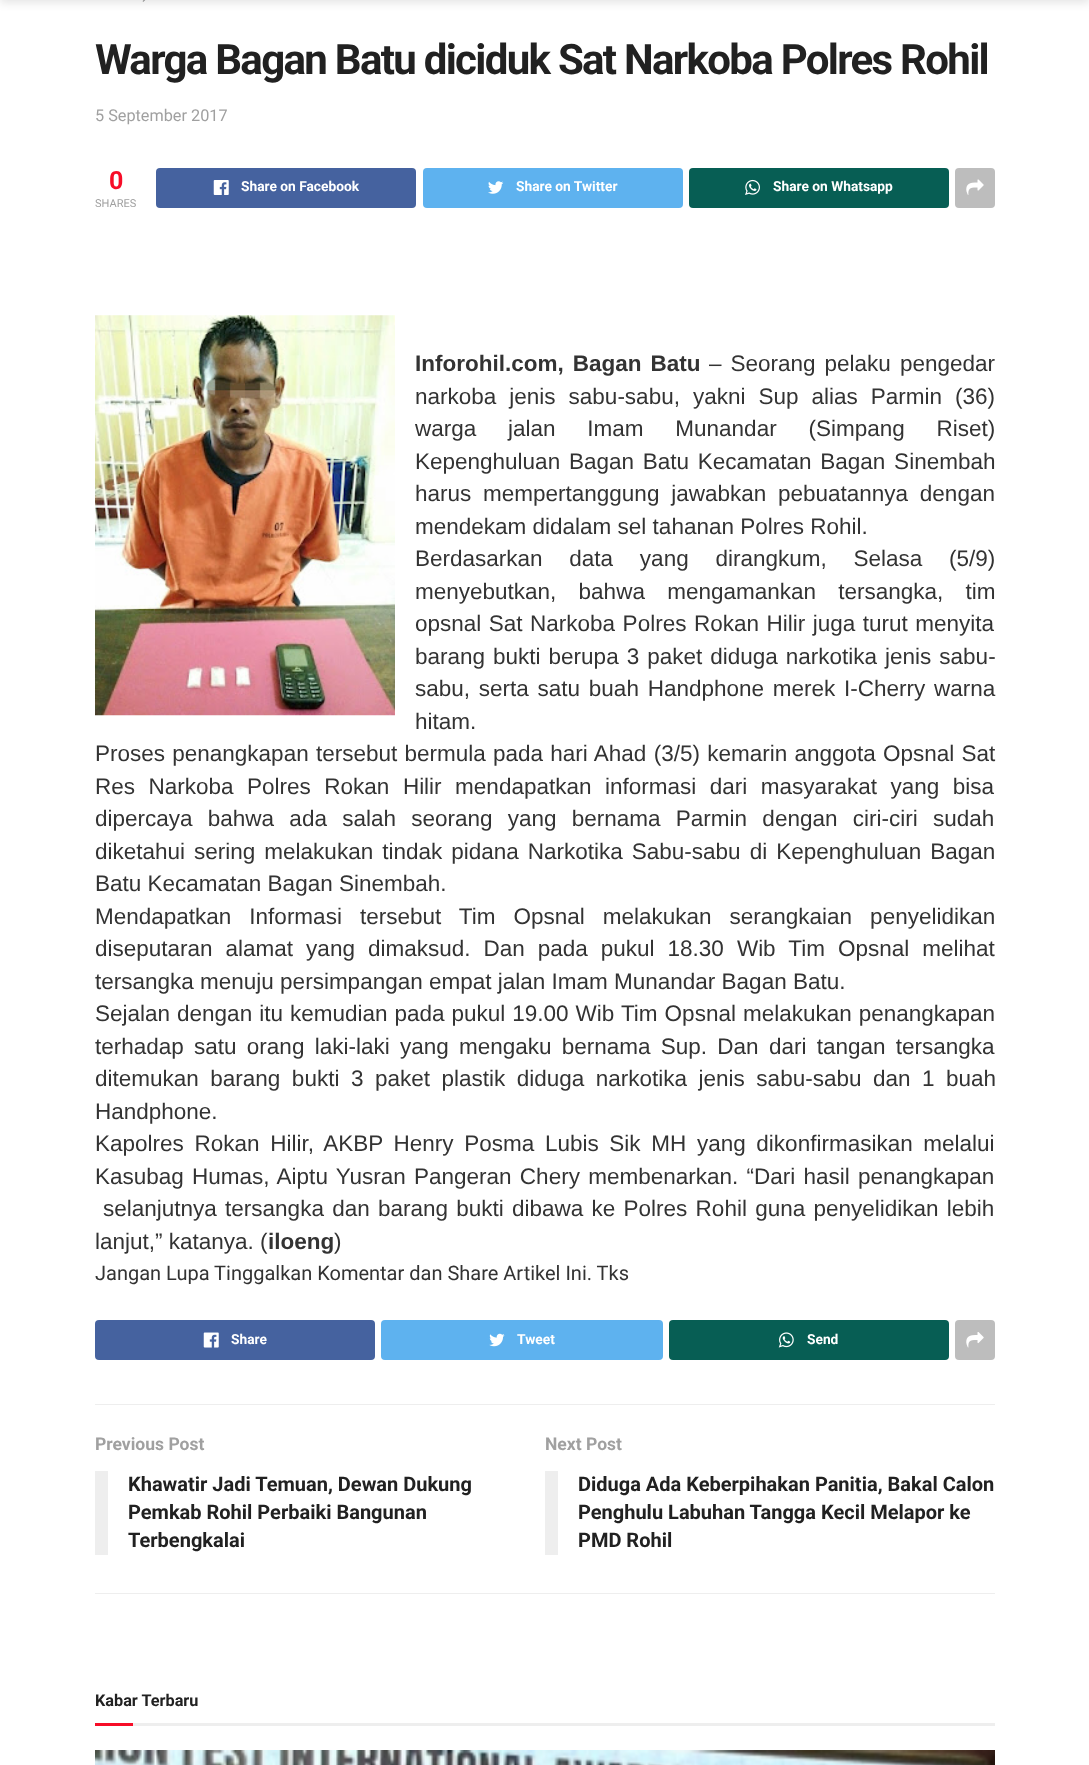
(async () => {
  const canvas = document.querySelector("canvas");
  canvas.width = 1089;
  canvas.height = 1765;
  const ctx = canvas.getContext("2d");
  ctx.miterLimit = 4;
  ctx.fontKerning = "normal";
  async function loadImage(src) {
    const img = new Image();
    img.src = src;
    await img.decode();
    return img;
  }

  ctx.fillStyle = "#ffffff";
  ctx.fillRect(0, 0, 1089, 1765);
  ctx.drawImage(await loadImage("img/1.png"), 142, 0, 4, 2);
  ctx.fillStyle = "rgba(0, 0, 0, 0.1)";
  ctx.filter = "blur(4px)";
  ctx.beginPath();
  ctx.rect(0, -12, 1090, 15);
  ctx.fill();
  ctx.filter = "none";
  ctx.fillStyle = "#45629f";
  ctx.beginPath();
  ctx.roundRect(156, 168, 260, 40, 4);
  ctx.fill();
  ctx.drawImage(await loadImage("img/2.png"), 213, 180, 16, 15);
  ctx.fillStyle = "#5eb2ef";
  ctx.beginPath();
  ctx.roundRect(423, 168, 260, 40, 4);
  ctx.fill();
  ctx.drawImage(await loadImage("img/3.png"), 488, 181, 16, 13);
  ctx.fillStyle = "#075e54";
  ctx.beginPath();
  ctx.roundRect(689, 168, 260, 40, 4);
  ctx.fill();
  ctx.drawImage(await loadImage("img/4.png"), 745, 179, 15, 16);
  ctx.fillStyle = "#bdbdbd";
  ctx.beginPath();
  ctx.roundRect(955, 168, 40, 40, 4);
  ctx.fill();
  ctx.drawImage(await loadImage("img/5.png"), 966, 179, 18, 16);
  ctx.drawImage(await loadImage("img/6.png"), 95, 315, 300, 401);
  ctx.fillStyle = "#45629f";
  ctx.beginPath();
  ctx.roundRect(95, 1320, 280, 40, 4);
  ctx.fill();
  ctx.drawImage(await loadImage("img/7.png"), 203, 1332, 16, 16);
  ctx.fillStyle = "#5eb2ef";
  ctx.beginPath();
  ctx.roundRect(381, 1320, 282, 40, 4);
  ctx.fill();
  ctx.drawImage(await loadImage("img/8.png"), 489, 1333, 16, 14);
  ctx.fillStyle = "#075e54";
  ctx.beginPath();
  ctx.roundRect(669, 1320, 280, 40, 4);
  ctx.fill();
  ctx.drawImage(await loadImage("img/9.png"), 778, 1332, 16, 16);
  ctx.fillStyle = "#bdbdbd";
  ctx.beginPath();
  ctx.roundRect(955, 1320, 40, 40, 4);
  ctx.fill();
  ctx.drawImage(await loadImage("img/10.png"), 966, 1332, 18, 16);
  for (const [x, y, w, h, color] of [
    [95, 1404, 900, 1, "#eeeeee"],
    [95, 1593, 900, 1, "#eeeeee"],
    [95, 1471, 13, 84, "#eeeeee"],
    [545, 1471, 13, 84, "#eeeeee"],
    [133, 1723, 862, 3, "#eeeeee"],
    [95, 1723, 38, 3, "#f70d28"],
  ]) {
    ctx.fillStyle = color;
    ctx.fillRect(x, y, w, h);
  }
  ctx.drawImage(await loadImage("img/11.png"), 95, 1750, 900, 15);
  ctx.letterSpacing = "-1.7px";
  ctx.font = "bold 42px Roboto";
  ctx.fillStyle = "#212121";
  ctx.fillText("Warga Bagan Batu diciduk Sat Narkoba Polres Rohil", 95, 74);
  ctx.letterSpacing = "0px";
  ctx.font = "16.25px Roboto";
  ctx.fillStyle = "#a0a0a0";
  ctx.fillText("5 September 2017", 95, 121);
  ctx.font = "bold 25px Roboto";
  ctx.fillStyle = "#f70d28";
  ctx.fillText("0", 109, 189);
  ctx.font = "11px Roboto";
  ctx.fillStyle = "#a0a0a0";
  ctx.fillText("SHARES", 95, 207);
  ctx.font = "bold 13.75px Roboto";
  ctx.fillStyle = "#ffffff";
  for (const [text, x, y] of [
    ["Share on Facebook", 241, 191],
    ["Share on Twitter", 516, 191],
    ["Share on Whatsapp", 773, 191],
  ]) {
    ctx.fillText(text, x, y);
  }
  ctx.wordSpacing = "2.75px";
  ctx.font = "bold 22.5px Liberation Sans";
  ctx.fillStyle = "#333333";
  ctx.fillText("Inforohil.com, Bagan Batu", 415, 371);
  ctx.font = "22.5px Liberation Sans";
  ctx.fillText("– Seorang pelaku pengedar", 709, 371);
  ctx.wordSpacing = "6.75px";
  ctx.fillText("narkoba jenis sabu-sabu, yakni Sup alias Parmin (36)", 415, 404);
  ctx.wordSpacing = "25.5px";
  ctx.fillText("warga jalan Imam Munandar (Simpang Riset)", 415, 436);
  ctx.wordSpacing = "2.5px";
  ctx.fillText("Kepenghuluan Bagan Batu Kecamatan Bagan Sinembah", 415, 469);
  ctx.wordSpacing = "5.5px";
  ctx.fillText("harus mempertanggung jawabkan pebuatannya dengan", 415, 501);
  ctx.wordSpacing = "0px";
  ctx.fillText("mendekam didalam sel tahanan Polres Rohil.", 415, 534);
  ctx.wordSpacing = "20.5px";
  ctx.fillText("Berdasarkan data yang dirangkum, Selasa (5/9)", 415, 566);
  ctx.wordSpacing = "16px";
  ctx.fillText("menyebutkan, bahwa mengamankan tersangka, tim", 415, 599);
  ctx.wordSpacing = "1.25px";
  ctx.fillText("opsnal Sat Narkoba Polres Rokan Hilir juga turut menyita", 415, 631);
  ctx.wordSpacing = "1.75px";
  ctx.fillText("barang bukti berupa 3 paket diduga narkotika jenis sabu-", 415, 664);
  ctx.wordSpacing = "2.5px";
  ctx.fillText("sabu, serta satu buah Handphone merek I-Cherry warna", 415, 696);
  ctx.wordSpacing = "0px";
  ctx.fillText("hitam.", 415, 729);
  ctx.wordSpacing = "1px";
  ctx.fillText("Proses penangkapan tersebut bermula pada hari Ahad (3/5) kemarin anggota Opsnal Sat", 95, 761);
  ctx.wordSpacing = "7.25px";
  ctx.fillText("Res Narkoba Polres Rokan Hilir mendapatkan informasi dari masyarakat yang bisa", 95, 794);
  ctx.wordSpacing = "9px";
  ctx.fillText("dipercaya bahwa ada salah seorang yang bernama Parmin dengan ciri-ciri sudah", 95, 826);
  ctx.wordSpacing = "2.75px";
  ctx.fillText("diketahui sering melakukan tindak pidana Narkotika Sabu-sabu di Kepenghuluan Bagan", 95, 859);
  ctx.wordSpacing = "0px";
  ctx.fillText("Batu Kecamatan Bagan Sinembah.", 95, 891);
  ctx.wordSpacing = "11.75px";
  ctx.fillText("Mendapatkan Informasi tersebut Tim Opsnal melakukan serangkaian penyelidikan", 95, 924);
  ctx.wordSpacing = "6.75px";
  ctx.fillText("diseputaran alamat yang dimaksud. Dan pada pukul 18.30 Wib Tim Opsnal melihat", 95, 956);
  ctx.wordSpacing = "0px";
  ctx.fillText("tersangka menuju persimpangan empat jalan Imam Munandar Bagan Batu.", 95, 989);
  ctx.wordSpacing = "0.75px";
  ctx.fillText("Sejalan dengan itu kemudian pada pukul 19.00 Wib Tim Opsnal melakukan penangkapan", 95, 1021);
  ctx.wordSpacing = "4px";
  ctx.fillText("terhadap satu orang laki-laki yang mengaku bernama Sup. Dan dari tangan tersangka", 95, 1054);
  ctx.wordSpacing = "5.25px";
  ctx.fillText("ditemukan barang bukti 3 paket plastik diduga narkotika jenis sabu-sabu dan 1 buah", 95, 1086);
  ctx.wordSpacing = "0px";
  ctx.fillText("Handphone.", 95, 1119);
  ctx.wordSpacing = "4.4px";
  ctx.fillText("Kapolres Rokan Hilir, AKBP Henry Posma Lubis Sik MH yang dikonfirmasikan melalui", 95, 1151);
  ctx.wordSpacing = "2px";
  ctx.fillText("Kasubag Humas, Aiptu Yusran Pangeran Chery membenarkan. “Dari hasil penangkapan", 95, 1184);
  ctx.fillText("selanjutnya tersangka dan barang bukti dibawa ke Polres Rohil guna penyelidikan lebih", 103, 1216);
  ctx.wordSpacing = "0px";
  ctx.fillText("lanjut,” katanya. (", 95, 1249);
  ctx.font = "bold 22.5px Liberation Sans";
  ctx.fillText("iloeng", 268, 1249);
  ctx.font = "22.5px Liberation Sans";
  ctx.fillText(")", 334, 1249);
  ctx.font = "20px Roboto";
  ctx.fillText("Jangan Lupa Tinggalkan Komentar dan Share Artikel Ini. Tks", 95, 1280);
  ctx.font = "bold 13.75px Roboto";
  ctx.fillStyle = "#ffffff";
  for (const [text, x, y] of [
    ["Share", 231, 1344],
    ["Tweet", 517, 1344],
    ["Send", 807, 1344],
  ]) {
    ctx.fillText(text, x, y);
  }
  ctx.font = "bold 17.5px Roboto";
  ctx.fillStyle = "#a0a0a0";
  ctx.fillText("Previous Post", 95, 1450);
  ctx.font = "bold 20px Roboto";
  ctx.fillStyle = "#212121";
  for (const [text, x, y] of [
    ["Khawatir Jadi Temuan, Dewan Dukung", 128, 1491],
    ["Pemkab Rohil Perbaiki Bangunan", 128, 1519],
    ["Terbengkalai", 128, 1547],
  ]) {
    ctx.fillText(text, x, y);
  }
  ctx.font = "bold 17.5px Roboto";
  ctx.fillStyle = "#a0a0a0";
  ctx.fillText("Next Post", 545, 1450);
  ctx.font = "bold 20px Roboto";
  ctx.fillStyle = "#212121";
  for (const [text, x, y] of [
    ["Diduga Ada Keberpihakan Panitia, Bakal Calon", 578, 1491],
    ["Penghulu Labuhan Tangga Kecil Melapor ke", 578, 1519],
    ["PMD Rohil", 578, 1547],
  ]) {
    ctx.fillText(text, x, y);
  }
  ctx.font = "bold 16.25px Roboto";
  ctx.fillText("Kabar Terbaru", 95, 1706);
})();
